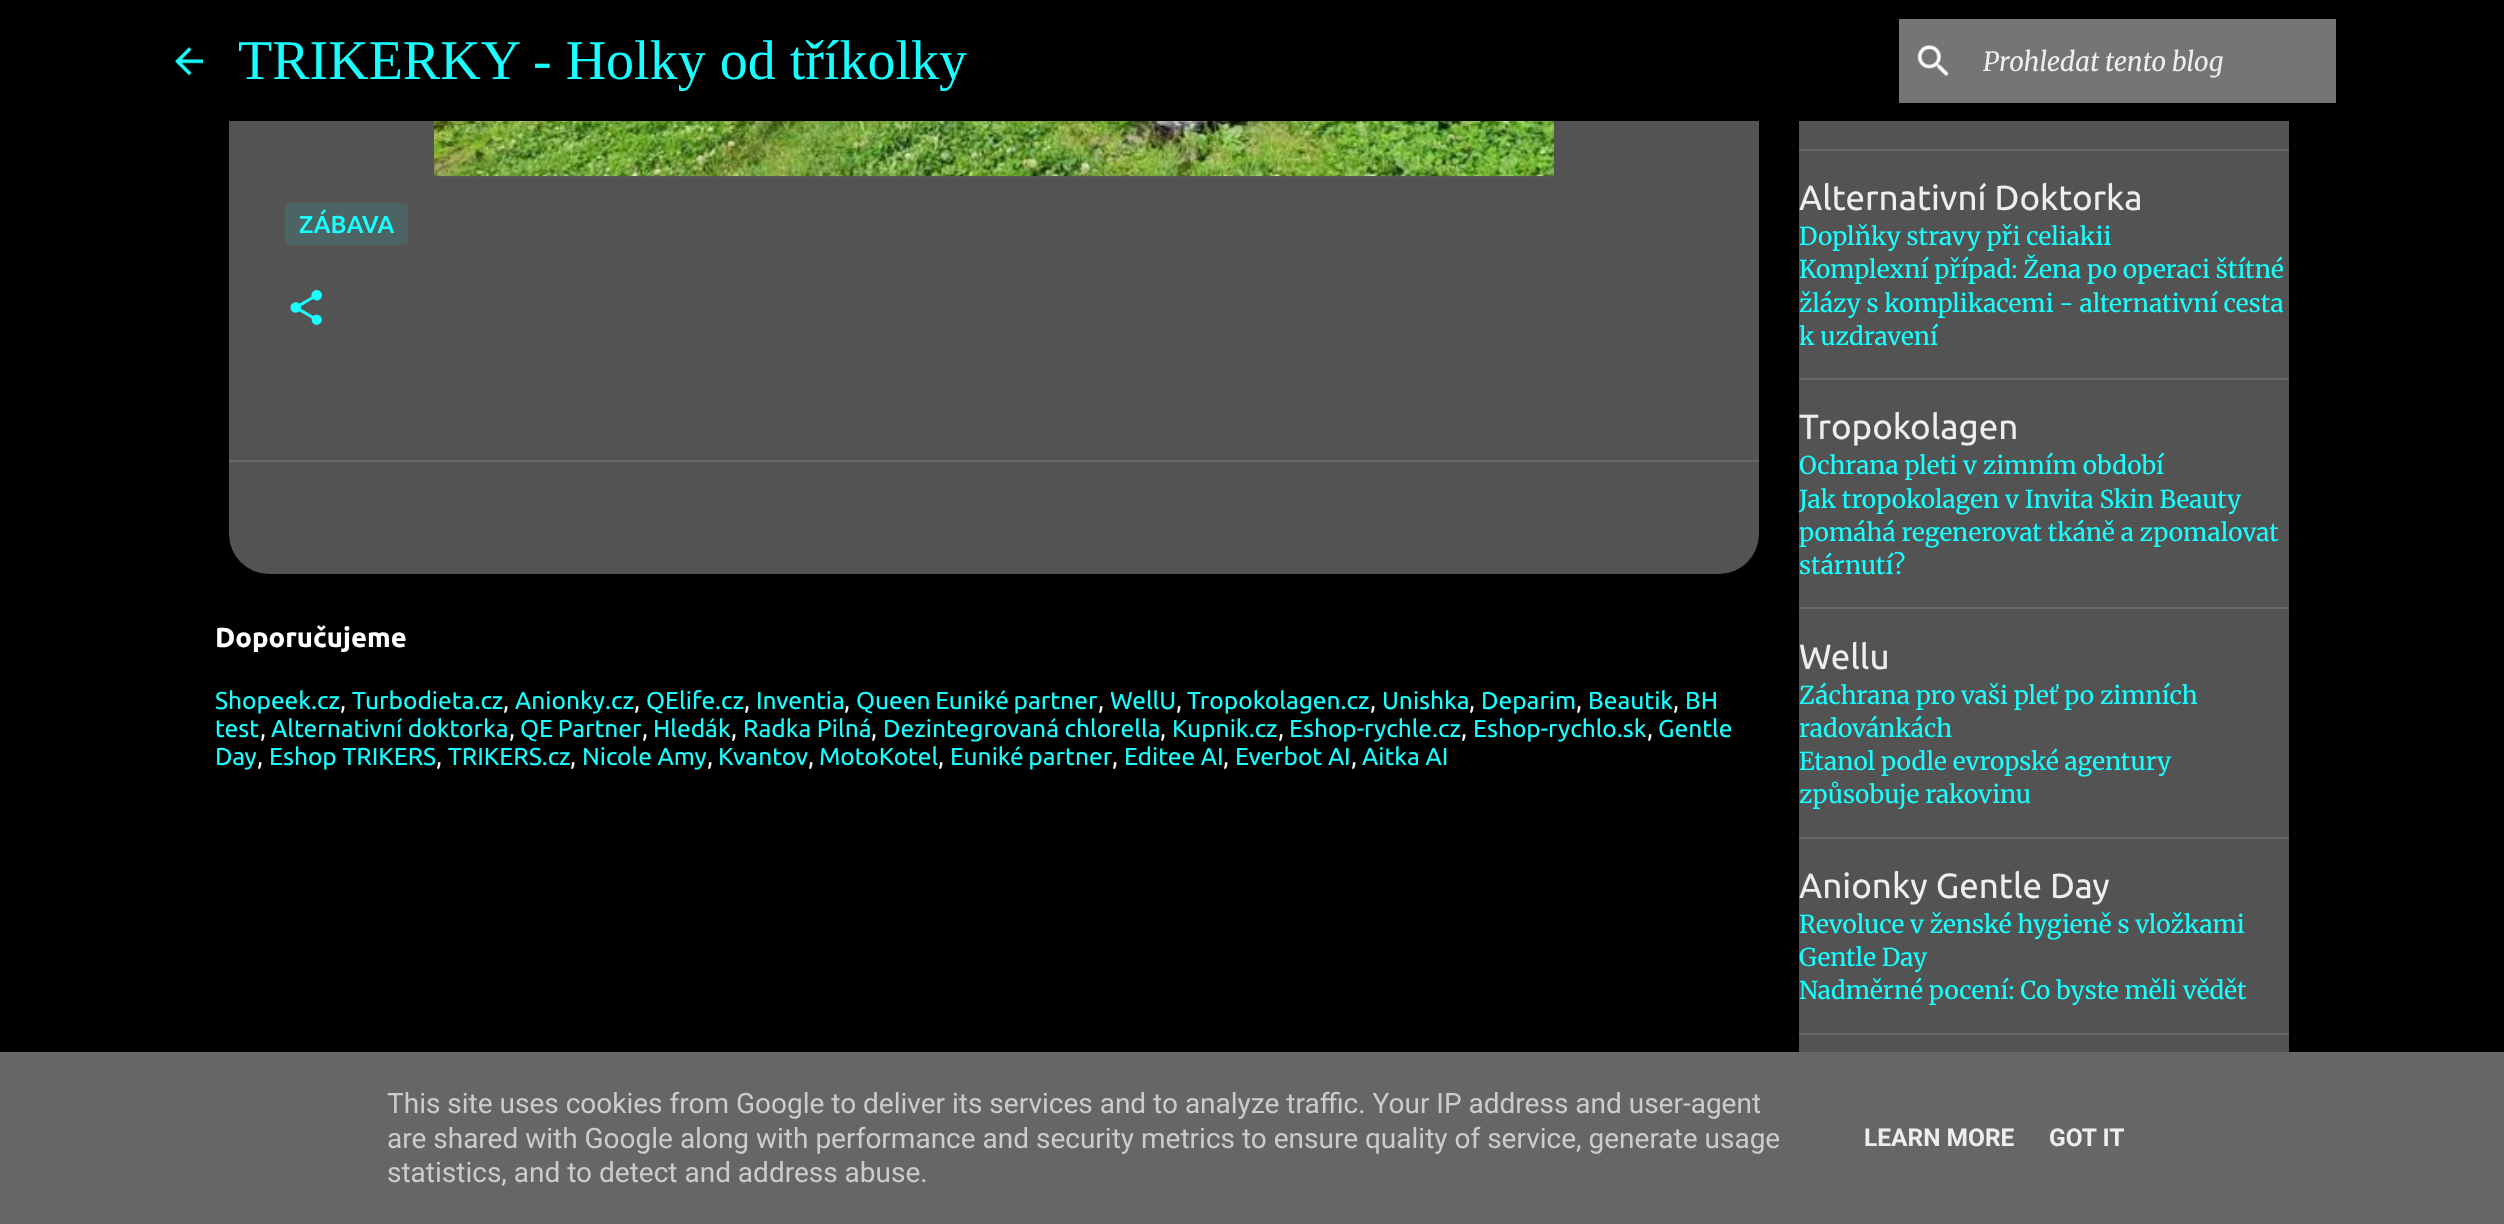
(async () => {
  const canvas = document.querySelector("canvas");
  canvas.width = 2504;
  canvas.height = 1224;
  const ctx = canvas.getContext("2d");
  ctx.miterLimit = 4;
  ctx.fontKerning = "normal";
  async function loadImage(src) {
    const img = new Image();
    img.src = src;
    await img.decode();
    return img;
  }

  ctx.fillStyle = "#000000";
  ctx.fillRect(0, 0, 2504, 1224);
  ctx.drawImage(await loadImage("img/1.png"), 175, 47, 28, 29);
  ctx.fillStyle = "#757575";
  ctx.fillRect(1899, 19, 437, 84);
  ctx.drawImage(await loadImage("img/2.png"), 1917, 45, 32, 32);
  ctx.fillStyle = "#535353";
  ctx.fillRect(229, 121, 1530, 339);
  ctx.drawImage(await loadImage("img/3.png"), 434, 121, 1120, 56);
  ctx.fillStyle = "#4d6464";
  ctx.beginPath();
  ctx.roundRect(285, 203, 123, 42, 4);
  ctx.fill();
  ctx.drawImage(await loadImage("img/4.png"), 290, 290, 32, 35);
  ctx.fillStyle = "#535353";
  ctx.beginPath();
  ctx.roundRect(229, 460, 1530, 114, [0, 0, 40, 40]);
  ctx.fill();
  for (const [x, y, w, h, color] of [
    [229, 460, 1530, 2, "#686868"],
    [1799, 121, 490, 931, "#535353"],
    [1799, 149, 490, 2, "#686868"],
    [1799, 378, 490, 2, "#686868"],
    [1799, 607, 490, 2, "#686868"],
    [1799, 837, 490, 2, "#686868"],
    [1799, 1033, 490, 2, "#686868"],
    [0, 1052, 2504, 172, "#666666"],
  ]) {
    ctx.fillStyle = color;
    ctx.fillRect(x, y, w, h);
  }
  ctx.font = "56px Liberation Serif";
  ctx.fillStyle = "#18ffff";
  ctx.fillText("TRIKERKY - Holky od tříkolky", 238, 79);
  ctx.font = "italic 26.25px Merriweather";
  ctx.fillStyle = "#eeeeee";
  ctx.fillText("Prohledat tento blog", 1983, 71);
  ctx.font = "500 24.5px Ubuntu";
  ctx.fillStyle = "#18ffff";
  ctx.fillText("ZÁBAVA", 299, 233);
  ctx.font = "bold 27.5px Ubuntu";
  ctx.fillStyle = "#ffffff";
  ctx.fillText("Doporučujeme", 215, 647);
  ctx.font = "24.5px Ubuntu";
  ctx.fillStyle = "#18ffff";
  ctx.fillText("Shopeek.cz", 215, 709);
  ctx.fillStyle = "#ffffff";
  ctx.fillText(",", 340, 709);
  ctx.fillStyle = "#18ffff";
  ctx.fillText("Turbodieta.cz", 352, 709);
  ctx.fillStyle = "#ffffff";
  ctx.fillText(",", 503, 709);
  ctx.fillStyle = "#18ffff";
  ctx.fillText("Anionky.cz", 515, 709);
  ctx.fillStyle = "#ffffff";
  ctx.fillText(",", 634, 709);
  ctx.fillStyle = "#18ffff";
  ctx.fillText("QElife.cz", 646, 709);
  ctx.fillStyle = "#ffffff";
  ctx.fillText(",", 744, 709);
  ctx.fillStyle = "#18ffff";
  ctx.fillText("Inventia", 756, 709);
  ctx.fillStyle = "#ffffff";
  ctx.fillText(",", 844, 709);
  ctx.wordSpacing = "-1px";
  ctx.fillStyle = "#18ffff";
  ctx.fillText("Queen Euniké partner", 856, 709);
  ctx.wordSpacing = "0px";
  ctx.fillStyle = "#ffffff";
  ctx.fillText(",", 1098, 709);
  ctx.fillStyle = "#18ffff";
  ctx.fillText("WellU", 1110, 709);
  ctx.fillStyle = "#ffffff";
  ctx.fillText(",", 1176, 709);
  ctx.fillStyle = "#18ffff";
  ctx.fillText("Tropokolagen.cz", 1187, 709);
  ctx.fillStyle = "#ffffff";
  ctx.fillText(",", 1370, 709);
  ctx.fillStyle = "#18ffff";
  ctx.fillText("Unishka", 1382, 709);
  ctx.fillStyle = "#ffffff";
  ctx.fillText(",", 1469, 709);
  ctx.fillStyle = "#18ffff";
  ctx.fillText("Deparim", 1481, 709);
  ctx.fillStyle = "#ffffff";
  ctx.fillText(",", 1576, 709);
  ctx.fillStyle = "#18ffff";
  ctx.fillText("Beautik", 1588, 709);
  ctx.fillStyle = "#ffffff";
  ctx.fillText(",", 1673, 709);
  ctx.fillStyle = "#18ffff";
  ctx.fillText("BH", 1685, 709);
  ctx.fillText("test", 215, 737);
  ctx.fillStyle = "#ffffff";
  ctx.fillText(",", 260, 737);
  ctx.fillStyle = "#18ffff";
  ctx.fillText("Alternativní doktorka", 271, 737);
  ctx.fillStyle = "#ffffff";
  ctx.fillText(",", 509, 737);
  ctx.wordSpacing = "-1px";
  ctx.fillStyle = "#18ffff";
  ctx.fillText("QE Partner", 520, 737);
  ctx.wordSpacing = "0px";
  ctx.fillStyle = "#ffffff";
  ctx.fillText(",", 642, 737);
  ctx.fillStyle = "#18ffff";
  ctx.fillText("Hledák", 653, 737);
  ctx.fillStyle = "#ffffff";
  ctx.fillText(",", 731, 737);
  ctx.fillStyle = "#18ffff";
  ctx.fillText("Radka Pilná", 743, 737);
  ctx.fillStyle = "#ffffff";
  ctx.fillText(",", 871, 737);
  ctx.fillStyle = "#18ffff";
  ctx.fillText("Dezintegrovaná chlorella", 883, 737);
  ctx.fillStyle = "#ffffff";
  ctx.fillText(",", 1160, 737);
  ctx.fillStyle = "#18ffff";
  ctx.fillText("Kupnik.cz", 1172, 737);
  ctx.fillStyle = "#ffffff";
  ctx.fillText(",", 1278, 737);
  ctx.fillStyle = "#18ffff";
  ctx.fillText("Eshop-rychle.cz", 1289, 737);
  ctx.fillStyle = "#ffffff";
  ctx.fillText(",", 1461, 737);
  ctx.fillStyle = "#18ffff";
  ctx.fillText("Eshop-rychlo.sk", 1473, 737);
  ctx.fillStyle = "#ffffff";
  ctx.fillText(",", 1647, 737);
  ctx.fillStyle = "#18ffff";
  ctx.fillText("Gentle", 1658, 737);
  ctx.fillText("Day", 215, 765);
  ctx.fillStyle = "#ffffff";
  ctx.fillText(",", 257, 765);
  ctx.fillStyle = "#18ffff";
  ctx.fillText("Eshop TRIKERS", 269, 765);
  ctx.fillStyle = "#ffffff";
  ctx.fillText(",", 436, 765);
  ctx.fillStyle = "#18ffff";
  ctx.fillText("TRIKERS.cz", 448, 765);
  ctx.fillStyle = "#ffffff";
  ctx.fillText(",", 570, 765);
  ctx.fillStyle = "#18ffff";
  ctx.fillText("Nicole Amy", 582, 765);
  ctx.fillStyle = "#ffffff";
  ctx.fillText(",", 707, 765);
  ctx.fillStyle = "#18ffff";
  ctx.fillText("Kvantov", 718, 765);
  ctx.fillStyle = "#ffffff";
  ctx.fillText(",", 808, 765);
  ctx.fillStyle = "#18ffff";
  ctx.fillText("MotoKotel", 819, 765);
  ctx.fillStyle = "#ffffff";
  ctx.fillText(",", 938, 765);
  ctx.wordSpacing = "-1px";
  ctx.fillStyle = "#18ffff";
  ctx.fillText("Euniké partner", 950, 765);
  ctx.wordSpacing = "0px";
  ctx.fillStyle = "#ffffff";
  ctx.fillText(",", 1112, 765);
  ctx.fillStyle = "#18ffff";
  ctx.fillText("Editee AI", 1124, 765);
  ctx.fillStyle = "#ffffff";
  ctx.fillText(",", 1223, 765);
  ctx.fillStyle = "#18ffff";
  ctx.fillText("Everbot AI", 1235, 765);
  ctx.fillStyle = "#ffffff";
  ctx.fillText(",", 1351, 765);
  ctx.fillStyle = "#18ffff";
  ctx.fillText("Aitka AI", 1362, 765);
  ctx.font = "35px Ubuntu";
  ctx.fillStyle = "#eeeeee";
  ctx.fillText("Alternativní Doktorka", 1799, 210);
  ctx.font = "24.5px Merriweather";
  ctx.fillStyle = "#18ffff";
  for (const [text, x, y] of [
    ["Doplňky stravy při celiakii", 1799, 245],
    ["Komplexní případ: Žena po operaci štítné", 1799, 278],
    ["žlázy s komplikacemi - alternativní cesta", 1799, 312],
    ["k uzdravení", 1799, 345],
  ]) {
    ctx.fillText(text, x, y);
  }
  ctx.font = "35px Ubuntu";
  ctx.fillStyle = "#eeeeee";
  ctx.fillText("Tropokolagen", 1799, 439);
  ctx.font = "24.5px Merriweather";
  ctx.fillStyle = "#18ffff";
  for (const [text, x, y] of [
    ["Ochrana pleti v zimním období", 1799, 474],
    ["Jak tropokolagen v Invita Skin Beauty", 1799, 508],
    ["pomáhá regenerovat tkáně a zpomalovat", 1799, 541],
    ["stárnutí?", 1799, 574],
  ]) {
    ctx.fillText(text, x, y);
  }
  ctx.font = "35px Ubuntu";
  ctx.fillStyle = "#eeeeee";
  ctx.fillText("Wellu", 1799, 669);
  ctx.font = "24.5px Merriweather";
  ctx.fillStyle = "#18ffff";
  for (const [text, x, y] of [
    ["Záchrana pro vaši pleť po zimních", 1799, 704],
    ["radovánkách", 1799, 737],
    ["Etanol podle evropské agentury", 1799, 770],
    ["způsobuje rakovinu", 1799, 803],
  ]) {
    ctx.fillText(text, x, y);
  }
  ctx.font = "35px Ubuntu";
  ctx.fillStyle = "#eeeeee";
  ctx.fillText("Anionky Gentle Day", 1799, 898);
  ctx.font = "24.5px Merriweather";
  ctx.fillStyle = "#18ffff";
  for (const [text, x, y] of [
    ["Revoluce v ženské hygieně s vložkami", 1799, 933],
    ["Gentle Day", 1799, 966],
    ["Nadměrné pocení: Co byste měli vědět", 1799, 999],
  ]) {
    ctx.fillText(text, x, y);
  }
  ctx.font = "28px Roboto";
  ctx.fillStyle = "#cccccc";
  for (const [text, x, y] of [
    ["This site uses cookies from Google to deliver its services and to analyze traffic. Your IP address and user-agent", 387, 1113],
    ["are shared with Google along with performance and security metrics to ensure quality of service, generate usage", 387, 1148],
    ["statistics, and to detect and address abuse.", 387, 1182],
  ]) {
    ctx.fillText(text, x, y);
  }
  ctx.font = "bold 24.5px Roboto";
  ctx.fillStyle = "#eeeeee";
  ctx.fillText("LEARN MORE", 1864, 1146);
  ctx.fillText("GOT IT", 2049, 1146);
})();
